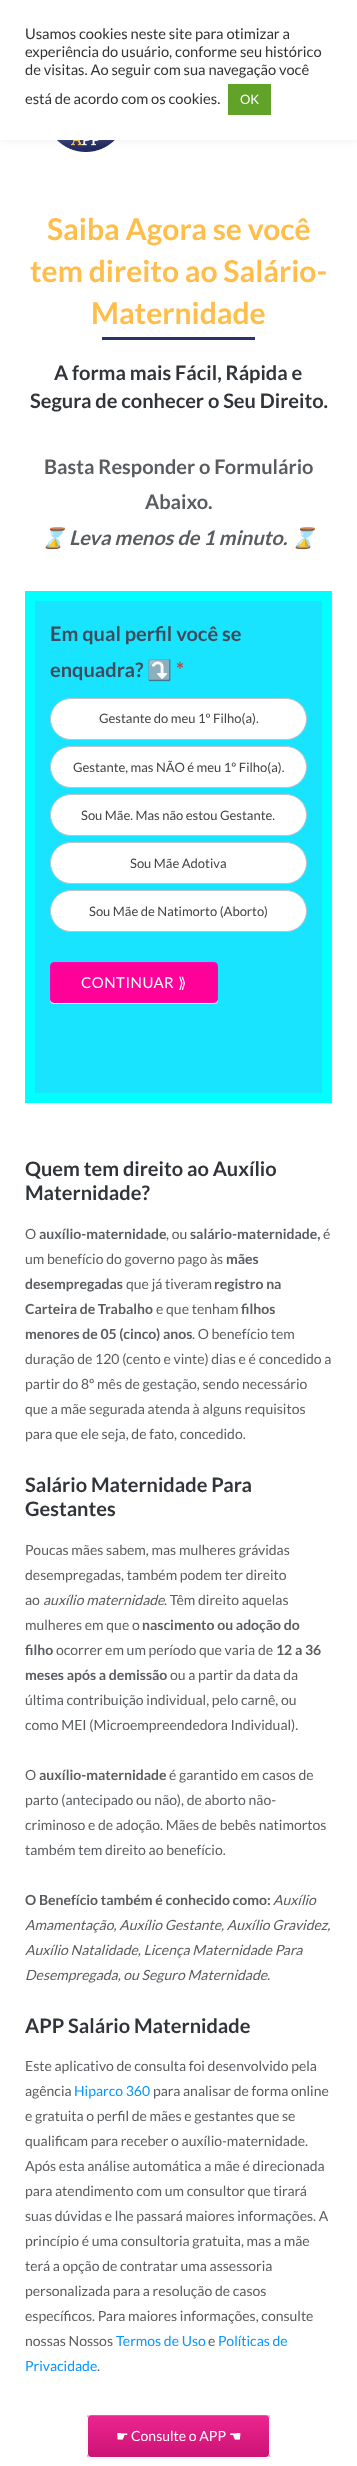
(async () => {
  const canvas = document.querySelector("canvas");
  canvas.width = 357;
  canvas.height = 2466;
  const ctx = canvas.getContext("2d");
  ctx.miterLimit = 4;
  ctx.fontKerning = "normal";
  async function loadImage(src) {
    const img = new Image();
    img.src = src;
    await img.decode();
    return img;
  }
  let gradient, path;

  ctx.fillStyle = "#ffffff";
  ctx.fillRect(0, 0, 357, 2466);
  ctx.drawImage(await loadImage("img/1.png"), 57, 140, 58, 12);
  ctx.fillStyle = "rgba(172, 171, 171, 0.3)";
  ctx.filter = "blur(5px)";
  ctx.beginPath();
  ctx.rect(0, -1, 357, 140);
  ctx.fill();
  ctx.filter = "none";
  for (const [x, y, w, h, color] of [
    [0, 0, 357, 140, "#ffffff"],
    [228, 84, 43, 31, "#61a229"],
    [102, 337, 153, 3, "#2a336f"],
    [25, 591, 307, 512, "#00ffff"],
    [35, 601, 287, 492, "#19e4ff"],
  ]) {
    ctx.fillStyle = color;
    ctx.fillRect(x, y, w, h);
  }
  ctx.fillStyle = "#ffffff";
  ctx.beginPath();
  ctx.roundRect(50.5, 698.5, 256, 41, 20.5);
  ctx.fill();
  ctx.strokeStyle = "#bfc3c8";
  ctx.stroke();
  ctx.beginPath();
  ctx.roundRect(50.5, 746.5, 256, 41, 20.5);
  ctx.fill();
  ctx.stroke();
  ctx.beginPath();
  ctx.roundRect(50.5, 794.5, 256, 41, 20.5);
  ctx.fill();
  ctx.stroke();
  ctx.beginPath();
  ctx.roundRect(50.5, 842.5, 256, 41, 20.5);
  ctx.fill();
  ctx.stroke();
  ctx.beginPath();
  ctx.roundRect(50.5, 890.5, 256, 41, 20.5);
  ctx.fill();
  ctx.stroke();
  ctx.fillStyle = "#eeeeee";
  ctx.filter = "blur(0.5px)";
  ctx.beginPath();
  ctx.roundRect(50, 963, 168, 41, 4);
  ctx.fill();
  ctx.filter = "none";
  ctx.fillStyle = "#ff0099";
  ctx.beginPath();
  ctx.roundRect(50.5, 962.5, 167, 40, 3.5);
  ctx.fill();
  ctx.strokeStyle = "#ff00bb";
  ctx.stroke();
  ctx.fillStyle = "rgba(0, 0, 0, 0.07)";
  ctx.filter = "blur(1px)";
  ctx.beginPath();
  ctx.roundRect(87, 2415, 183, 44, 4);
  ctx.fill();
  ctx.filter = "none";
  ctx.save();
  ctx.beginPath();
  ctx.roundRect(87, 2414, 183, 44, 4);
  ctx.clip();
  gradient = ctx.createLinearGradient(88, 2457, 88, 2415);
  gradient.addColorStop(0, "#cd1275");
  gradient.addColorStop(1, "#ec268f");
  ctx.fillStyle = gradient;
  ctx.fillRect(87, 2415, 183, 42);
  ctx.restore();
  ctx.fillStyle = "#f051a5";
  path = new Path2D("M90 2416H266C268 2416 269 2417 269 2418C269 2416 268 2415 266 2415H90L89 2416L88 2418C88 2417 89 2416 90 2416Z");
  ctx.fill(path);
  ctx.beginPath();
  ctx.roundRect(87.5, 2414.5, 182, 43, 3.5);
  ctx.strokeStyle = "#ffffff";
  ctx.stroke();
  ctx.font = "14.7px Lato";
  ctx.fillStyle = "#333333";
  for (const [text, x, y] of [
    ["Usamos cookies neste site para otimizar a", 25, 39],
    ["experiência do usuário, conforme seu histórico", 25, 57],
    ["de visitas. Ao seguir com sua navegação você", 25, 75],
    ["está de acordo com os cookies.", 25, 104],
  ]) {
    ctx.fillText(text, x, y);
  }
  ctx.font = "13px Lato";
  ctx.fillStyle = "#ffffff";
  ctx.fillText("OK", 240, 104);
  ctx.font = "bold 30px Lato";
  ctx.fillStyle = "#ffbd49";
  for (const [text, x, y] of [
    ["Saiba Agora se você", 47, 240],
    ["tem direito ao Salário-", 30, 282],
    ["Maternidade", 91, 324],
  ]) {
    ctx.fillText(text, x, y);
  }
  ctx.font = "bold 20px Lato";
  ctx.fillStyle = "#313539";
  ctx.fillText("A forma mais Fácil, Rápida e", 54, 380);
  ctx.fillText("Segura de conhecer o Seu Direito.", 30, 408);
  ctx.fillStyle = "#5a5d60";
  ctx.fillText("Basta Responder o Formulário", 44, 474);
  ctx.fillText("Abaixo.", 145, 509);
  ctx.font = "italic bold 20px Noto Color Emoji";
  ctx.fillText("⌛", 41, 545);
  ctx.font = "italic bold 20px Lato";
  ctx.fillText("Leva menos de 1 minuto.", 69, 545);
  ctx.font = "italic bold 20px Noto Color Emoji";
  ctx.fillText("⌛", 291, 545);
  ctx.font = "bold 20px Lato";
  ctx.fillStyle = "#3f4b5b";
  ctx.fillText("Em qual perfil você se", 50, 641);
  ctx.fillText("enquadra?", 50, 677);
  ctx.font = "bold 20px Noto Color Emoji";
  ctx.fillText("⤵️", 147, 677);
  ctx.font = "bold 20px Lato";
  ctx.fillStyle = "#b94a48";
  ctx.fillText("*", 176, 677);
  ctx.font = "13px Lato";
  ctx.fillStyle = "#444444";
  for (const [text, x, y] of [
    ["Gestante do meu 1º Filho(a).", 99, 723],
    ["Gestante, mas NÃO é meu 1º Filho(a).", 73, 772],
    ["Sou Mãe. Mas não estou Gestante.", 81, 820],
    ["Sou Mãe Adotiva", 130, 868],
    ["Sou Mãe de Natimorto (Aborto)", 89, 916],
  ]) {
    ctx.fillText(text, x, y);
  }
  ctx.letterSpacing = "0.5px";
  ctx.font = "15px Lato";
  ctx.fillStyle = "#ffffff";
  ctx.fillText("CONTINUAR", 81, 988);
  ctx.font = "15px DejaVu Sans";
  ctx.fillText("⟫", 178, 988);
  ctx.letterSpacing = "0px";
  ctx.font = "bold 20px Lato";
  ctx.fillStyle = "#313539";
  ctx.fillText("Quem tem direito ao Auxílio", 25, 1176);
  ctx.fillText("Maternidade?", 25, 1200);
  ctx.font = "14px Lato";
  ctx.fillStyle = "#5a5d60";
  ctx.fillText("O", 25, 1239);
  ctx.font = "bold 14px Lato";
  ctx.fillText("auxílio-maternidade", 39, 1239);
  ctx.font = "14px Lato";
  ctx.fillText(", ou", 166, 1239);
  ctx.font = "bold 14px Lato";
  ctx.fillText("salário-maternidade,", 190, 1239);
  ctx.font = "14px Lato";
  ctx.fillText("é", 323, 1239);
  ctx.fillText("um benefício do governo pago às", 25, 1264);
  ctx.font = "bold 14px Lato";
  ctx.fillText("mães", 226, 1264);
  ctx.fillText("desempregadas", 25, 1289);
  ctx.font = "14px Lato";
  ctx.fillText("que já tiveram", 126, 1289);
  ctx.font = "bold 14px Lato";
  ctx.fillText("registro na", 214, 1289);
  ctx.fillText("Carteira de Trabalho", 25, 1314);
  ctx.font = "14px Lato";
  ctx.fillText("e que tenham", 156, 1314);
  ctx.font = "bold 14px Lato";
  ctx.fillText("filhos", 241, 1314);
  ctx.fillText("menores de 05 (cinco) anos", 25, 1339);
  ctx.font = "14px Lato";
  for (const [text, x, y] of [
    [". O benefício tem", 192, 1339],
    ["duração de 120 (cento e vinte) dias e é concedido a", 25, 1364],
    ["partir do 8º mês de gestação, sendo necessário", 25, 1389],
    ["que a mãe segurada atenda à alguns requisitos", 25, 1414],
    ["para que ele seja, de fato, concedido.", 25, 1439],
  ]) {
    ctx.fillText(text, x, y);
  }
  ctx.font = "bold 20px Lato";
  ctx.fillStyle = "#313539";
  ctx.fillText("Salário Maternidade Para", 25, 1492);
  ctx.fillText("Gestantes", 25, 1516);
  ctx.font = "14px Lato";
  ctx.fillStyle = "#5a5d60";
  for (const [text, x, y] of [
    ["Poucas mães sabem, mas mulheres grávidas", 25, 1555],
    ["desempregadas, também podem ter direito", 25, 1580],
    ["ao", 25, 1605],
  ]) {
    ctx.fillText(text, x, y);
  }
  ctx.font = "italic 14px Lato";
  ctx.fillText("auxílio maternidade", 43, 1605);
  ctx.font = "14px Lato";
  ctx.fillText(". Têm direito aquelas", 164, 1605);
  ctx.fillText("mulheres em que o", 25, 1630);
  ctx.font = "bold 14px Lato";
  ctx.fillText("nascimento ou adoção do", 142, 1630);
  ctx.fillText("filho", 25, 1655);
  ctx.font = "14px Lato";
  ctx.fillText("ocorrer em um período que varia de", 56, 1655);
  ctx.font = "bold 14px Lato";
  ctx.fillText("12 a 36", 276, 1655);
  ctx.fillText("meses após a demissão", 25, 1680);
  ctx.font = "14px Lato";
  for (const [text, x, y] of [
    ["ou a partir da data da", 170, 1680],
    ["última contribuição individual, pelo carnê, ou", 25, 1705],
    ["como MEI (Microempreendedora Individual).", 25, 1730],
    ["O", 25, 1780],
  ]) {
    ctx.fillText(text, x, y);
  }
  ctx.font = "bold 14px Lato";
  ctx.fillText("auxílio-maternidade", 39, 1780);
  ctx.font = "14px Lato";
  for (const [text, x, y] of [
    ["é garantido em casos de", 169, 1780],
    ["parto (antecipado ou não), de aborto não-", 25, 1805],
    ["criminoso e de adoção. Mães de bebês natimortos", 25, 1830],
    ["também tem direito ao benefício.", 25, 1855],
  ]) {
    ctx.fillText(text, x, y);
  }
  ctx.font = "bold 14px Lato";
  ctx.fillText("O Benefício também é conhecido como:", 25, 1905);
  ctx.font = "italic 14px Lato";
  for (const [text, x, y] of [
    ["Auxílio", 273, 1905],
    ["Amamentação, Auxílio Gestante, Auxílio Gravidez,", 25, 1930],
    ["Auxílio Natalidade, Licença Maternidade Para", 25, 1955],
    ["Desempregada, ou Seguro Maternidade.", 25, 1980],
  ]) {
    ctx.fillText(text, x, y);
  }
  ctx.font = "bold 20px Lato";
  ctx.fillStyle = "#313539";
  ctx.fillText("APP Salário Maternidade", 25, 2033);
  ctx.font = "14px Lato";
  ctx.fillStyle = "#5a5d60";
  ctx.fillText("Este aplicativo de consulta foi desenvolvido pela", 25, 2071);
  ctx.fillText("agência", 25, 2096);
  ctx.fillStyle = "#0896fe";
  ctx.fillText("Hiparco 360", 74, 2096);
  ctx.fillStyle = "#5a5d60";
  for (const [text, x, y] of [
    ["para analisar de forma online", 153, 2096],
    ["e gratuita o perfil de mães e gestantes que se", 25, 2121],
    ["qualificam para receber o auxílio-maternidade.", 25, 2146],
    ["Após esta análise automática a mãe é direcionada", 25, 2171],
    ["para atendimento com um consultor que tirará", 25, 2196],
    ["suas dúvidas e lhe passará maiores informações. A", 25, 2221],
    ["princípio é uma consultoria gratuita, mas a mãe", 25, 2246],
    ["terá a opção de contratar uma assessoria", 25, 2271],
    ["personalizada para a resolução de casos", 25, 2296],
    ["específicos. Para maiores informações, consulte", 25, 2321],
    ["nossas Nossos", 25, 2346],
  ]) {
    ctx.fillText(text, x, y);
  }
  ctx.fillStyle = "#0896fe";
  ctx.fillText("Termos de Uso", 116, 2346);
  ctx.fillStyle = "#5a5d60";
  ctx.fillText("e", 208, 2346);
  ctx.fillStyle = "#0896fe";
  ctx.fillText("Políticas de", 218, 2346);
  ctx.fillText("Privacidade", 25, 2371);
  ctx.fillStyle = "#5a5d60";
  ctx.fillText(".", 97, 2371);
  ctx.font = "14px DejaVu Sans";
  ctx.fillStyle = "#ffffff";
  ctx.fillText("☛", 116, 2441);
  ctx.font = "14px Lato";
  ctx.fillText("Consulte o APP", 131, 2441);
  ctx.font = "14px DejaVu Sans";
  ctx.fillText("☚", 229, 2441);
})();
